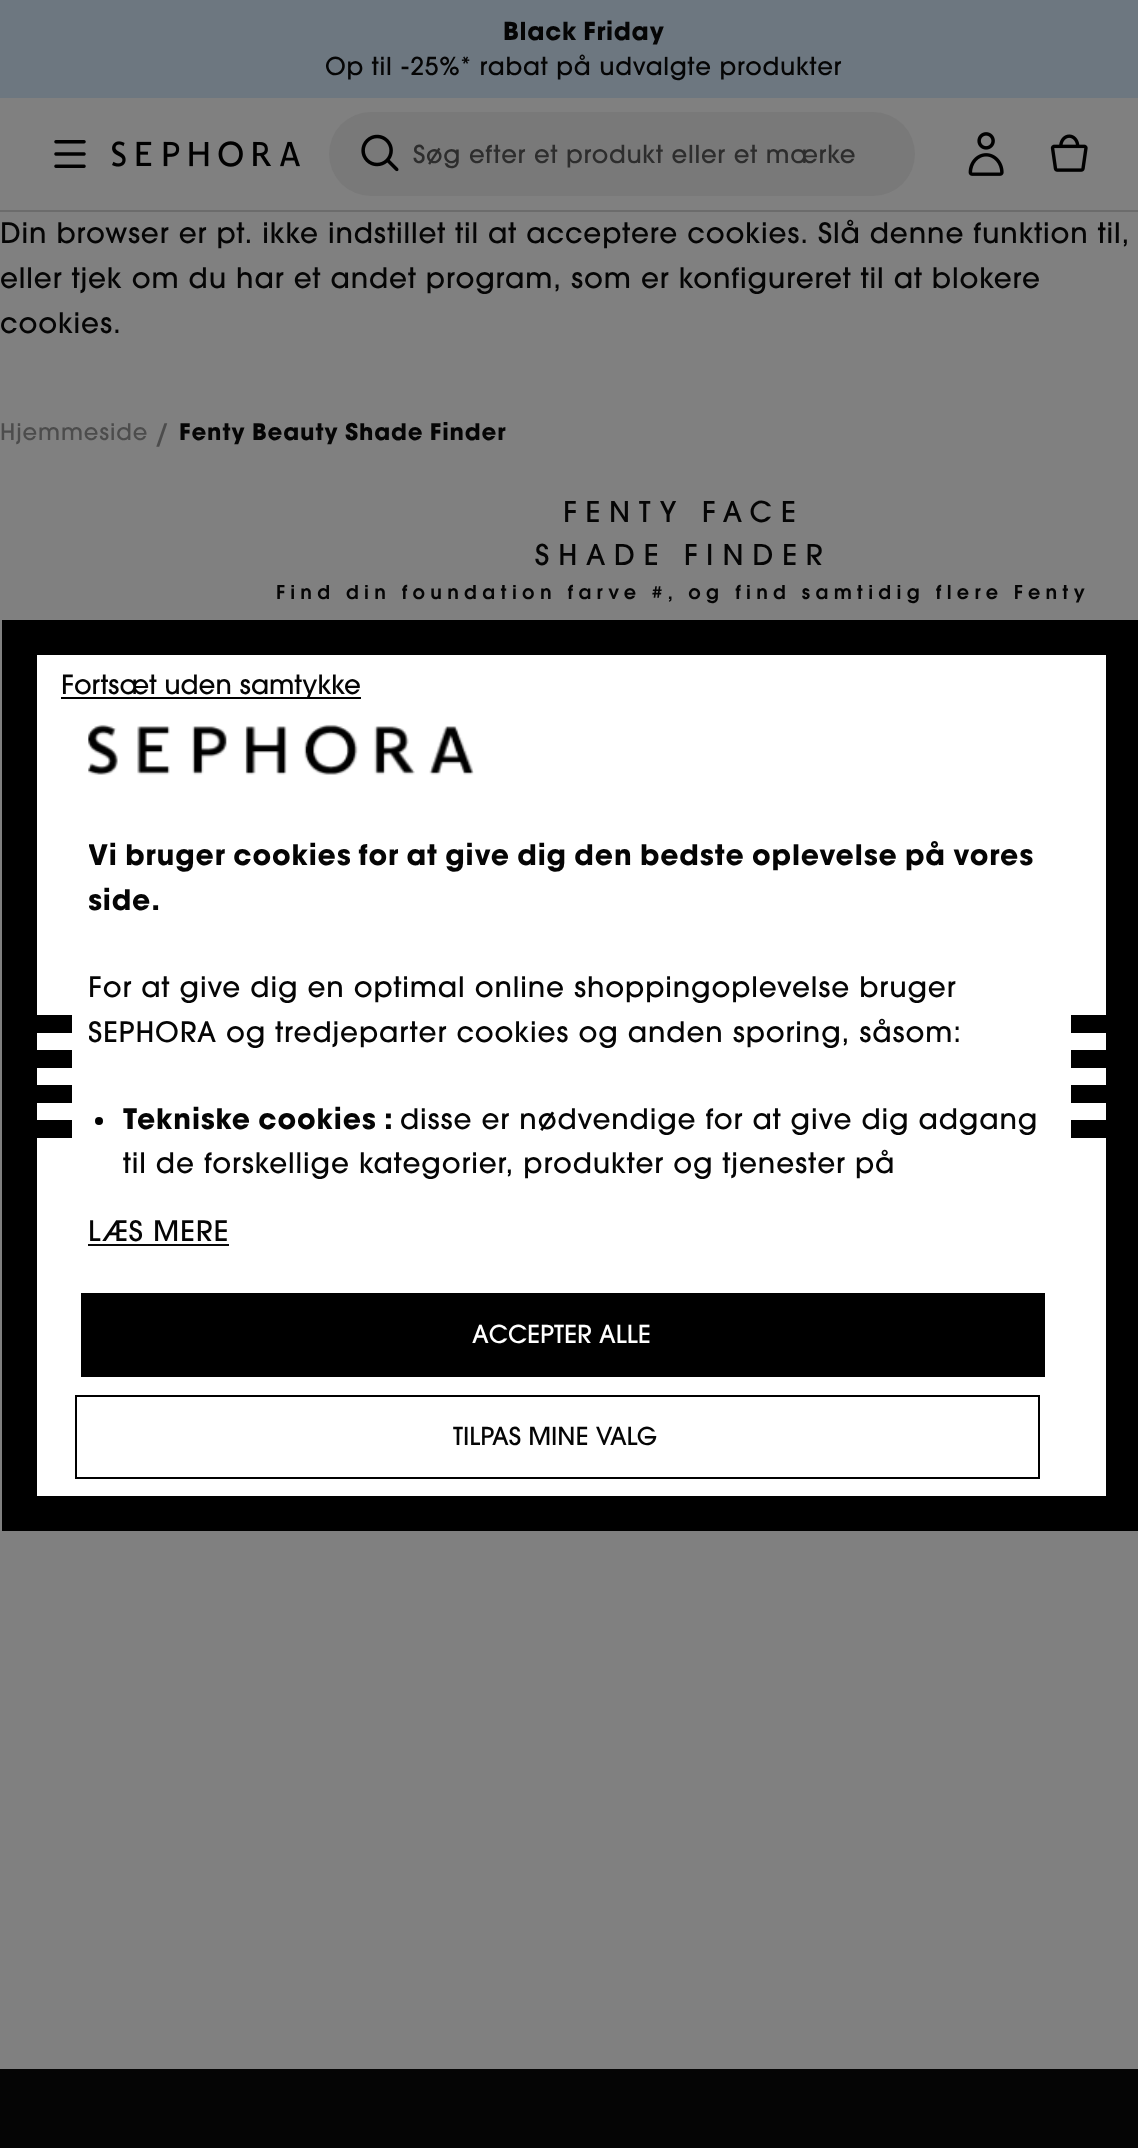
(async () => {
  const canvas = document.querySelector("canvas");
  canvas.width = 1138;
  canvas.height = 2148;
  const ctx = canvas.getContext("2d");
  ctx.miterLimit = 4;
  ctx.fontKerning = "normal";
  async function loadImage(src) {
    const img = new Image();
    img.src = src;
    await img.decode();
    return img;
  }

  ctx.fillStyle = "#808080";
  ctx.fillRect(0, 0, 1138, 2148);
  ctx.fillStyle = "#6c6c6c";
  ctx.fillRect(0, 210, 1138, 2);
  ctx.fillStyle = "#6d7780";
  ctx.fillRect(0, 0, 1138, 98);
  ctx.drawImage(await loadImage("img/1.png"), 54, 140, 32, 28);
  ctx.drawImage(await loadImage("img/2.png"), 112, 141, 188, 26);
  ctx.fillStyle = "#797979";
  ctx.beginPath();
  ctx.roundRect(329, 112, 586, 84, 42);
  ctx.fill();
  ctx.drawImage(await loadImage("img/3.png"), 361, 134, 38, 38);
  ctx.drawImage(await loadImage("img/4.png"), 968, 132, 36, 44);
  ctx.drawImage(await loadImage("img/5.png"), 1050, 134, 38, 38);
  ctx.fillStyle = "#050505";
  ctx.fillRect(0, 2069, 1138, 79);
  ctx.fillStyle = "#ffffff";
  ctx.beginPath();
  ctx.rect(19.5, 637.5, 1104, 876);
  ctx.fill();
  ctx.strokeStyle = "#000000";
  ctx.lineWidth = 35;
  ctx.stroke();
  for (const [x, y, w, h, color] of [
    [61, 697, 300, 2, "#000000"],
    [88, 1244, 141, 2, "#0a0a0a"],
    [81, 1293, 964, 84, "#000000"],
  ]) {
    ctx.fillStyle = color;
    ctx.fillRect(x, y, w, h);
  }
  ctx.lineWidth = 2;
  ctx.strokeRect(76, 1396, 963, 82);
  for (const [x, y, w, h, color] of [
    [37, 1015, 35, 18, "#000000"],
    [37, 1050, 35, 18, "#000000"],
    [37, 1085, 35, 18, "#000000"],
    [37, 1120, 35, 18, "#000000"],
  ]) {
    ctx.fillStyle = color;
    ctx.fillRect(x, y, w, h);
  }
  ctx.drawImage(await loadImage("img/6.png"), 88, 724, 386, 51);
  ctx.beginPath();
  ctx.arc(99, 1121, 4, 0, Math.PI * 2);
  ctx.fill();
  for (const [x, y, w, h, color] of [
    [1071, 1015, 35, 18, "#000000"],
    [1071, 1050, 35, 18, "#000000"],
    [1071, 1085, 35, 18, "#000000"],
    [1071, 1120, 35, 18, "#000000"],
  ]) {
    ctx.fillStyle = color;
    ctx.fillRect(x, y, w, h);
  }
  ctx.letterSpacing = "0.7px";
  ctx.font = "bold 24.5px 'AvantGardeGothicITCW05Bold'";
  ctx.fillStyle = "#050505";
  ctx.fillText("Black Friday", 503, 40);
  ctx.font = "500 24.5px 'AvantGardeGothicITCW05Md'";
  ctx.fillText("Op til -25%* rabat på udvalgte produkter", 325, 75);
  ctx.fillStyle = "#2d2d2d";
  ctx.fillText("Søg efter et produkt eller et mærke", 413, 163);
  ctx.letterSpacing = "0.88px";
  ctx.font = "500 28px 'AvantGardeGothicITCW05Md'";
  ctx.fillStyle = "#050505";
  for (const [text, x, y] of [
    ["Din browser er pt. ikke indstillet til at acceptere cookies. Slå denne funktion til,", 0, 243],
    ["eller tjek om du har et andet program, som er konfigureret til at blokere", 0, 288],
    ["cookies.", 0, 333],
  ]) {
    ctx.fillText(text, x, y);
  }
  ctx.font = "500 22.75px 'AvantGardeGothicITCW05Md'";
  ctx.fillStyle = "#4c4c4c";
  ctx.fillText("Hjemmeside", 0, 440);
  ctx.font = "500 28px 'AvantGardeGothicITCW05Md'";
  ctx.fillText("/", 155, 444);
  ctx.font = "bold 22.75px 'AvantGardeGothicITCW05Bold'";
  ctx.fillStyle = "#050505";
  ctx.fillText("Fenty Beauty Shade Finder", 179, 440);
  ctx.letterSpacing = "8.75px";
  ctx.font = "500 31.5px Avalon";
  ctx.fillText("FENTY FACE", 563, 522);
  ctx.fillText("SHADE FINDER", 535, 565);
  ctx.letterSpacing = "5.25px";
  ctx.font = "600 21px Avalon";
  ctx.fillText("Find din foundation farve #, og find samtidig flere Fenty", 276, 599);
  ctx.letterSpacing = "0px";
  ctx.font = "500 26.25px 'AvantGardeGothicITCW05Md'";
  ctx.fillText("Fortsæt uden samtykke", 61, 694);
  ctx.letterSpacing = "0.88px";
  ctx.font = "500 28px 'AvantGardeGothicITCW05Md'";
  ctx.fillText("LÆS MERE", 88, 1241);
  ctx.letterSpacing = "0px";
  ctx.font = "500 24.5px 'AvantGardeGothicITCW05Md'";
  ctx.fillStyle = "#ffffff";
  ctx.fillText("ACCEPTER ALLE", 472, 1343);
  ctx.fillStyle = "#050505";
  ctx.fillText("TILPAS MINE VALG", 453, 1445);
  ctx.save();
  ctx.beginPath();
  ctx.rect(89, 672, 965, 525);
  ctx.clip();
  ctx.letterSpacing = "0.88px";
  ctx.font = "bold 28px 'AvantGardeGothicITCW05Bold'";
  ctx.fillText("Vi bruger cookies for at give dig den bedste oplevelse på vores", 88, 865);
  ctx.fillText("side.", 88, 910);
  ctx.restore();
  ctx.letterSpacing = "0.88px";
  ctx.font = "500 28px 'AvantGardeGothicITCW05Md'";
  ctx.fillText("For at give dig en optimal online shoppingoplevelse bruger", 88, 997);
  ctx.save();
  ctx.beginPath();
  ctx.rect(89, 672, 965, 525);
  ctx.clip();
  ctx.fillText("SEPHORA og tredjeparter cookies og anden sporing, såsom:", 88, 1042);
  ctx.restore();
  ctx.font = "bold 28px 'AvantGardeGothicITCW05Bold'";
  ctx.fillText("Tekniske cookies :", 123, 1129);
  ctx.font = "500 28px 'AvantGardeGothicITCW05Md'";
  ctx.fillText("disse er nødvendige for at give dig adgang", 400, 1129);
  ctx.fillText("til de forskellige kategorier, produkter og tjenester på", 123, 1173);
})();
